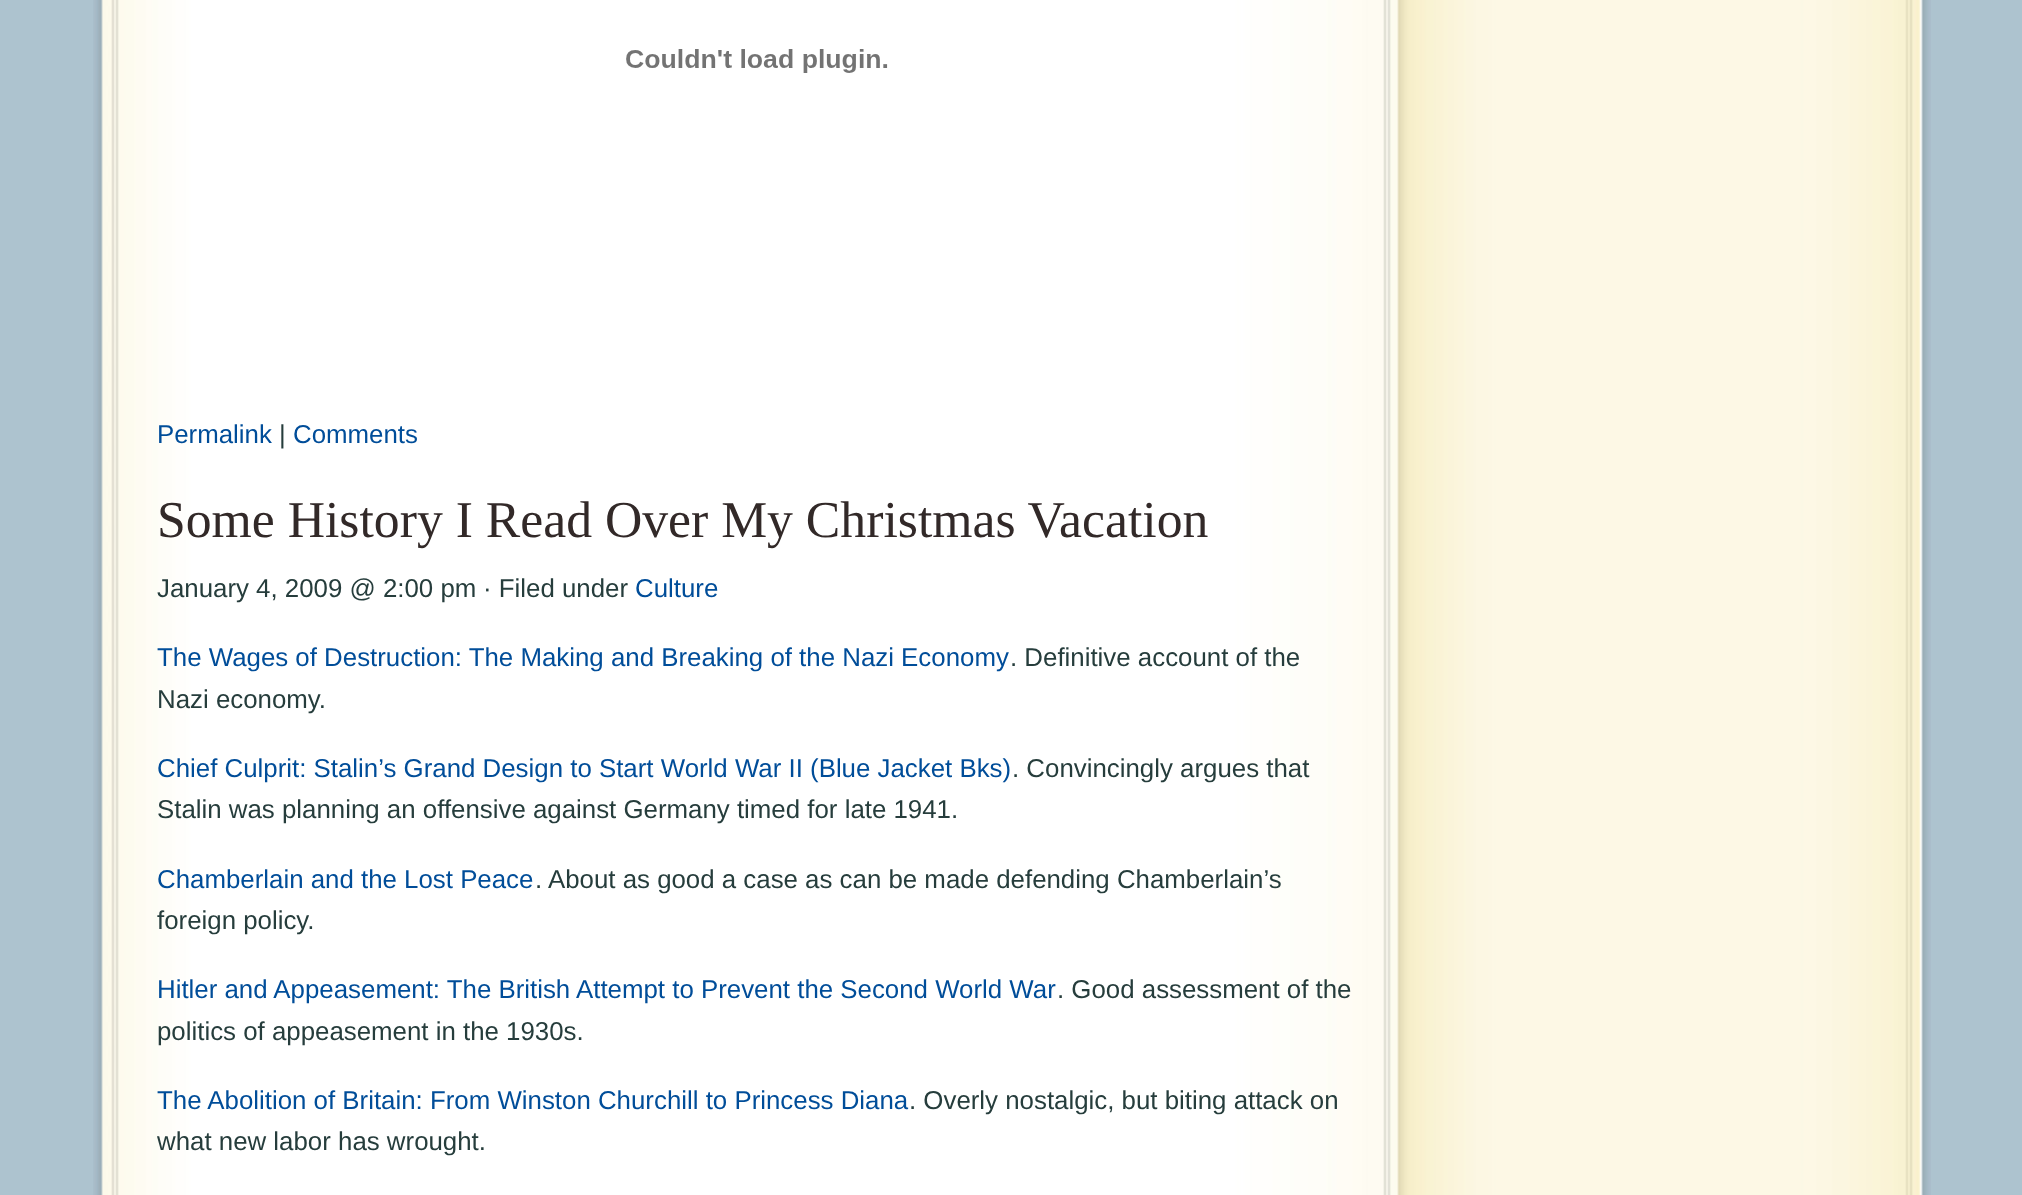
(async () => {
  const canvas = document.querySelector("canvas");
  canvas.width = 2022;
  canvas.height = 1195;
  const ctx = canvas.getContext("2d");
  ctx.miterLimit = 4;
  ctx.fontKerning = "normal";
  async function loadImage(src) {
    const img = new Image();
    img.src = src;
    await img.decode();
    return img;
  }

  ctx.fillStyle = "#adc3cf";
  ctx.fillRect(0, 0, 2022, 1195);
  ctx.drawImage(await loadImage("img/1.png"), 93, 0, 1838, 1195);
  ctx.drawImage(await loadImage("img/2.png"), 626, 49, 262, 24);
  ctx.font = "25.85px Liberation Sans";
  ctx.fillStyle = "#004d99";
  ctx.fillText("Permalink", 157, 443);
  ctx.fillStyle = "#263d3c";
  ctx.fillText("|", 279, 443);
  ctx.fillStyle = "#004d99";
  ctx.fillText("Comments", 293, 443);
  ctx.font = "51.7px Liberation Serif";
  ctx.fillStyle = "#322928";
  ctx.fillText("Some History I Read Over My Christmas Vacation", 157, 537);
  ctx.font = "25.85px Liberation Sans";
  ctx.fillStyle = "#263d3c";
  ctx.fillText("January 4, 2009 @ 2:00 pm", 157, 597);
  ctx.fillText("· Filed under", 483, 597);
  ctx.fillStyle = "#004d99";
  ctx.fillText("Culture", 635, 597);
  ctx.fillText("The Wages of Destruction: The Making and Breaking of the Nazi Economy", 157, 666);
  ctx.fillStyle = "#263d3c";
  ctx.fillText(". Definitive account of the", 1010, 666);
  ctx.fillText("Nazi economy.", 157, 708);
  ctx.fillStyle = "#004d99";
  ctx.fillText("Chief Culprit: Stalin’s Grand Design to Start World War II (Blue Jacket Bks)", 157, 777);
  ctx.fillStyle = "#263d3c";
  ctx.fillText(". Convincingly argues that", 1012, 777);
  ctx.fillText("Stalin was planning an offensive against Germany timed for late 1941.", 157, 818);
  ctx.fillStyle = "#004d99";
  ctx.fillText("Chamberlain and the Lost Peace", 157, 888);
  ctx.fillStyle = "#263d3c";
  ctx.fillText(". About as good a case as can be made defending Chamberlain’s", 535, 888);
  ctx.fillText("foreign policy.", 157, 929);
  ctx.fillStyle = "#004d99";
  ctx.fillText("Hitler and Appeasement: The British Attempt to Prevent the Second World War", 157, 998);
  ctx.fillStyle = "#263d3c";
  ctx.fillText(". Good assessment of the", 1057, 998);
  ctx.fillText("politics of appeasement in the 1930s.", 157, 1040);
  ctx.fillStyle = "#004d99";
  ctx.fillText("The Abolition of Britain: From Winston Churchill to Princess Diana", 157, 1109);
  ctx.fillStyle = "#263d3c";
  ctx.fillText(". Overly nostalgic, but biting attack on", 909, 1109);
  ctx.fillText("what new labor has wrought.", 157, 1150);
})();
